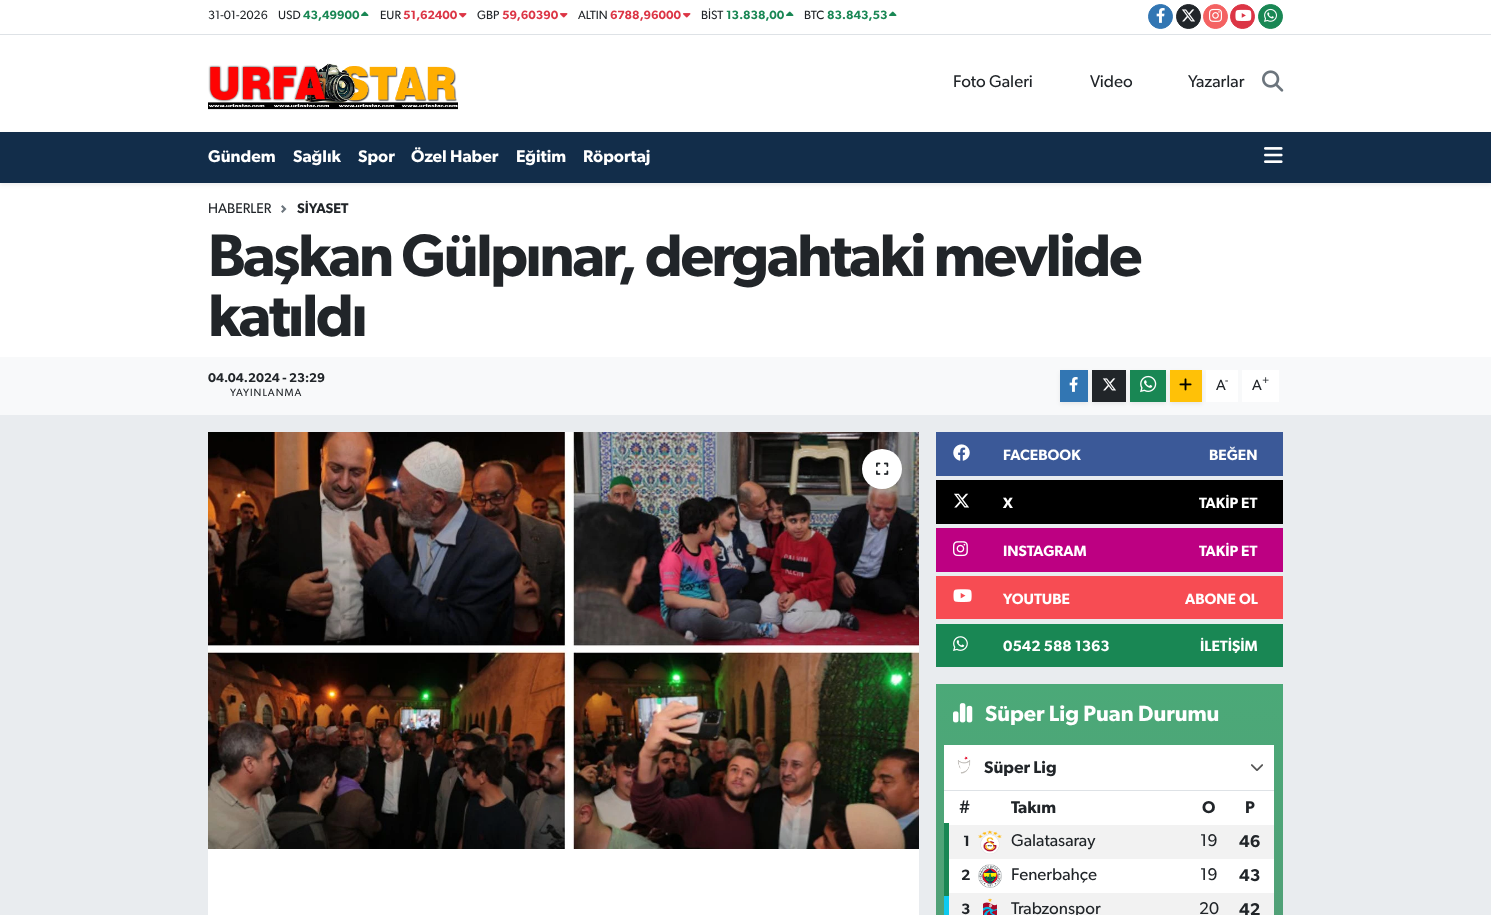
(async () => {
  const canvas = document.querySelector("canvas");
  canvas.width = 1491;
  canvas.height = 915;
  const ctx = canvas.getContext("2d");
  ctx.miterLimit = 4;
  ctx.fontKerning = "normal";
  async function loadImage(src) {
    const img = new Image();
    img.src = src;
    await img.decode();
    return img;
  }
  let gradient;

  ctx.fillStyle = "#e9ecef";
  ctx.fillRect(0, 0, 1491, 915);
  ctx.fillStyle = "#ffffff";
  ctx.fillRect(0, 0, 1491, 34);
  ctx.fillStyle = "#dee2e6";
  ctx.fillRect(0, 34, 1491, 1);
  ctx.drawImage(await loadImage("img/1.png"), 361, 11, 8, 5);
  ctx.drawImage(await loadImage("img/2.png"), 459, 13, 8, 5);
  ctx.drawImage(await loadImage("img/2.png"), 560, 13, 8, 5);
  ctx.drawImage(await loadImage("img/2.png"), 683, 13, 8, 5);
  ctx.drawImage(await loadImage("img/1.png"), 786, 11, 8, 5);
  ctx.drawImage(await loadImage("img/1.png"), 889, 11, 8, 5);
  ctx.fillStyle = "#3276b3";
  ctx.beginPath();
  ctx.arc(1160.5, 16.5, 12, 0, Math.PI * 2);
  ctx.fill();
  ctx.strokeStyle = "#3276b3";
  ctx.stroke();
  ctx.drawImage(await loadImage("img/3.png"), 1156, 8, 9, 15);
  ctx.fillStyle = "#212529";
  ctx.beginPath();
  ctx.arc(1188.5, 16.5, 12, 0, Math.PI * 2);
  ctx.fill();
  ctx.strokeStyle = "#212529";
  ctx.stroke();
  ctx.drawImage(await loadImage("img/4.png"), 1181, 9, 14, 13);
  ctx.fillStyle = "#f46262";
  ctx.beginPath();
  ctx.arc(1215.5, 16.5, 12, 0, Math.PI * 2);
  ctx.fill();
  ctx.strokeStyle = "#f46262";
  ctx.stroke();
  ctx.drawImage(await loadImage("img/5.png"), 1209, 8, 13, 14);
  ctx.fillStyle = "#dc3545";
  ctx.beginPath();
  ctx.arc(1242.5, 16.5, 12, 0, Math.PI * 2);
  ctx.fill();
  ctx.strokeStyle = "#dc3545";
  ctx.stroke();
  ctx.drawImage(await loadImage("img/6.png"), 1235, 9, 17, 12);
  ctx.fillStyle = "#198754";
  ctx.beginPath();
  ctx.arc(1270.5, 16.5, 12, 0, Math.PI * 2);
  ctx.fill();
  ctx.strokeStyle = "#198754";
  ctx.stroke();
  ctx.drawImage(await loadImage("img/7.png"), 1264, 8, 13, 14);
  ctx.fillStyle = "#ffffff";
  ctx.fillRect(0, 35, 1491, 97);
  ctx.drawImage(await loadImage("img/8.png"), 208, 63, 250, 47);
  ctx.drawImage(await loadImage("img/9.png"), 1262, 70, 22, 22);
  ctx.fillRect(0, 183, 1491, 174);
  ctx.fillStyle = "rgba(0, 0, 0, 0.07)";
  ctx.filter = "blur(2px)";
  ctx.beginPath();
  ctx.rect(0, 134, 1491, 51);
  ctx.fill();
  ctx.filter = "none";
  ctx.fillStyle = "#122d4a";
  ctx.fillRect(0, 132, 1491, 51);
  ctx.drawImage(await loadImage("img/10.png"), 1264, 147, 19, 16);
  ctx.drawImage(await loadImage("img/11.png"), 281, 205, 6, 8);
  ctx.fillStyle = "#f8f9fa";
  ctx.fillRect(0, 357, 1491, 58);
  ctx.fillStyle = "rgba(0, 0, 0, 0.07)";
  ctx.filter = "blur(2px)";
  ctx.beginPath();
  ctx.rect(1060, 372, 28, 32);
  ctx.fill();
  ctx.filter = "none";
  ctx.fillStyle = "#3276b3";
  ctx.fillRect(1060, 370, 28, 32);
  ctx.drawImage(await loadImage("img/3.png"), 1069, 377, 9, 15);
  ctx.fillStyle = "rgba(0, 0, 0, 0.07)";
  ctx.filter = "blur(2px)";
  ctx.beginPath();
  ctx.rect(1092, 372, 34, 32);
  ctx.fill();
  ctx.filter = "none";
  ctx.fillStyle = "#212529";
  ctx.fillRect(1092, 370, 34, 32);
  ctx.drawImage(await loadImage("img/4.png"), 1102, 378, 14, 13);
  ctx.fillStyle = "rgba(0, 0, 0, 0.07)";
  ctx.filter = "blur(2px)";
  ctx.beginPath();
  ctx.rect(1130, 372, 36, 32);
  ctx.fill();
  ctx.filter = "none";
  ctx.fillStyle = "#198754";
  ctx.fillRect(1130, 370, 36, 32);
  ctx.drawImage(await loadImage("img/12.png"), 1140, 375, 17, 18);
  ctx.fillStyle = "#ffffff";
  ctx.fillRect(1206, 370, 32, 32);
  ctx.fillStyle = "rgba(0, 0, 0, 0.07)";
  ctx.filter = "blur(2px)";
  ctx.beginPath();
  ctx.rect(1170, 372, 32, 32);
  ctx.fill();
  ctx.filter = "none";
  ctx.fillStyle = "#ffc107";
  ctx.fillRect(1170, 370, 32, 32);
  ctx.drawImage(await loadImage("img/13.png"), 1179, 378, 13, 13);
  ctx.fillStyle = "#ffffff";
  ctx.fillRect(1242, 370, 37, 32);
  ctx.drawImage(await loadImage("img/14.png"), 208, 432, 711, 417);
  ctx.beginPath();
  ctx.arc(882, 469, 20, 0, Math.PI * 2);
  ctx.fill();
  ctx.drawImage(await loadImage("img/15.png"), 876, 462, 13, 13);
  ctx.fillRect(208, 849, 711, 66);
  ctx.fillStyle = "#3b5998";
  ctx.fillRect(936, 432, 347, 44);
  ctx.drawImage(await loadImage("img/16.png"), 953, 444, 17, 17);
  ctx.fillStyle = "#000000";
  ctx.fillRect(936, 480, 347, 44);
  ctx.drawImage(await loadImage("img/17.png"), 954, 493, 15, 15);
  ctx.fillStyle = "#bd0082";
  ctx.fillRect(936, 528, 347, 44);
  ctx.drawImage(await loadImage("img/18.png"), 953, 541, 15, 16);
  ctx.fillStyle = "#f74c53";
  ctx.fillRect(936, 576, 347, 43);
  ctx.drawImage(await loadImage("img/19.png"), 953, 589, 19, 13);
  ctx.fillStyle = "#198754";
  ctx.fillRect(936, 624, 347, 43);
  ctx.drawImage(await loadImage("img/20.png"), 953, 636, 15, 15);
  gradient = ctx.createLinearGradient(1110, 684, 1110, 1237);
  gradient.addColorStop(0, "#4ba978");
  gradient.addColorStop(1, "#599576");
  ctx.fillStyle = gradient;
  ctx.fillRect(936, 684, 347, 231);
  ctx.drawImage(await loadImage("img/21.png"), 953, 703, 20, 20);
  ctx.fillStyle = "#ffffff";
  ctx.fillRect(944, 745, 330, 148);
  ctx.fillStyle = "#dee2e6";
  ctx.fillRect(944, 790, 330, 1);
  ctx.drawImage(await loadImage("img/22.png"), 957, 756, 14, 18);
  ctx.drawImage(await loadImage("img/23.png"), 1251, 764, 12, 7);
  ctx.fillStyle = "#f2f2f2";
  ctx.fillRect(949, 825, 325, 34);
  ctx.drawImage(await loadImage("img/24.png"), 978, 830, 24, 24);
  ctx.fillStyle = "#0dcaf0";
  ctx.fillRect(944, 891, 5, 24);
  ctx.fillStyle = "#198754";
  ctx.fillRect(944, 823, 5, 73);
  ctx.drawImage(await loadImage("img/25.png"), 978, 864, 24, 24);
  ctx.fillStyle = "#f2f2f2";
  ctx.fillRect(949, 893, 325, 22);
  ctx.drawImage(await loadImage("img/26.png"), 983, 898, 14, 17);
  ctx.font = "12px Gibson";
  ctx.fillStyle = "#212529";
  ctx.fillText("31-01-2026", 208, 19);
  ctx.fillText("USD", 278, 19);
  ctx.font = "600 12px Gibson";
  ctx.fillStyle = "#198754";
  ctx.fillText("43,49900", 303, 19);
  ctx.font = "12px Gibson";
  ctx.fillStyle = "#212529";
  ctx.fillText("EUR", 380, 19);
  ctx.font = "600 12px Gibson";
  ctx.fillStyle = "#dc3545";
  ctx.fillText("51,62400", 403, 19);
  ctx.font = "12px Gibson";
  ctx.fillStyle = "#212529";
  ctx.fillText("GBP", 477, 19);
  ctx.font = "600 12px Gibson";
  ctx.fillStyle = "#dc3545";
  ctx.fillText("59,60390", 502, 19);
  ctx.font = "12px Gibson";
  ctx.fillStyle = "#212529";
  ctx.fillText("ALTIN", 578, 19);
  ctx.font = "600 12px Gibson";
  ctx.fillStyle = "#dc3545";
  ctx.fillText("6788,96000", 610, 19);
  ctx.font = "12px Gibson";
  ctx.fillStyle = "#212529";
  ctx.fillText("BİST", 701, 19);
  ctx.font = "600 12px Gibson";
  ctx.fillStyle = "#198754";
  ctx.fillText("13.838,00", 726, 19);
  ctx.font = "12px Gibson";
  ctx.fillStyle = "#212529";
  ctx.fillText("BTC", 804, 19);
  ctx.font = "600 12px Gibson";
  ctx.fillStyle = "#198754";
  ctx.fillText("83.843,53", 827, 19);
  ctx.font = "17px Gibson";
  ctx.fillStyle = "#212529";
  for (const [text, x, y] of [
    ["Foto Galeri", 953, 87],
    ["Video", 1090, 87],
    ["Yazarlar", 1188, 87],
  ]) {
    ctx.fillText(text, x, y);
  }
  ctx.font = "600 17px Gibson";
  ctx.fillStyle = "#ffffff";
  for (const [text, x, y] of [
    ["Gündem", 208, 162],
    ["Sağlık", 293, 162],
    ["Spor", 358, 162],
    ["Özel Haber", 411, 162],
    ["Eğitim", 516, 162],
    ["Röportaj", 583, 162],
  ]) {
    ctx.fillText(text, x, y);
  }
  ctx.font = "14px Gibson";
  ctx.fillStyle = "#212529";
  ctx.fillText("HABERLER", 208, 213);
  ctx.font = "600 14px Gibson";
  ctx.fillText("SİYASET", 297, 213);
  ctx.letterSpacing = "-2.3px";
  ctx.font = "600 60px Gibson";
  ctx.fillText("Başkan Gülpınar, dergahtaki mevlide", 208, 276);
  ctx.fillText("katıldı", 208, 336);
  ctx.letterSpacing = "0px";
  ctx.font = "600 12.75px Gibson";
  ctx.fillText("04.04.2024 - 23:29", 208, 382);
  ctx.letterSpacing = "1px";
  ctx.font = "10.5px Gibson";
  ctx.fillText("YAYINLANMA", 230, 396);
  ctx.letterSpacing = "0px";
  ctx.font = "15px Gibson";
  ctx.fillText("A", 1216, 390);
  ctx.font = "11px Gibson";
  ctx.fillText("-", 1225, 384);
  ctx.font = "15px Gibson";
  ctx.fillText("A", 1252, 390);
  ctx.font = "11px Gibson";
  ctx.fillText("+", 1262, 384);
  ctx.font = "600 15px Gibson";
  ctx.fillStyle = "#ffffff";
  for (const [text, x, y] of [
    ["FACEBOOK", 1003, 460],
    ["BEĞEN", 1209, 460],
    ["X", 1003, 508],
    ["TAKİP ET", 1199, 508],
    ["INSTAGRAM", 1003, 556],
    ["TAKİP ET", 1199, 556],
    ["YOUTUBE", 1003, 604],
    ["ABONE OL", 1185, 604],
    ["0542 588 1363", 1003, 651],
    ["İLETİŞİM", 1200, 651],
  ]) {
    ctx.fillText(text, x, y);
  }
  ctx.font = "600 22px Gibson";
  ctx.fillText("Süper Lig Puan Durumu", 985, 721);
  ctx.font = "600 17px Gibson";
  ctx.fillStyle = "#212529";
  for (const [text, x, y] of [
    ["Süper Lig", 984, 773],
    ["#", 959, 813],
    ["Takım", 1011, 813],
    ["O", 1202, 813],
    ["P", 1245, 813],
  ]) {
    ctx.fillText(text, x, y);
  }
  ctx.font = "600 15px Gibson";
  ctx.fillText("1", 963, 846);
  ctx.font = "17px Gibson";
  ctx.fillText("Galatasaray", 1011, 846);
  ctx.fillText("19", 1200, 846);
  ctx.font = "600 17px Gibson";
  ctx.fillText("46", 1239, 847);
  ctx.font = "600 15px Gibson";
  ctx.fillText("2", 961, 880);
  ctx.font = "17px Gibson";
  ctx.fillText("Fenerbahçe", 1011, 880);
  ctx.fillText("19", 1200, 880);
  ctx.font = "600 17px Gibson";
  ctx.fillText("43", 1239, 881);
  ctx.font = "600 15px Gibson";
  ctx.fillText("3", 961, 914);
  ctx.font = "17px Gibson";
  ctx.fillText("Trabzonspor", 1011, 914);
  ctx.fillText("20", 1199, 914);
  ctx.font = "600 17px Gibson";
  ctx.fillText("42", 1239, 915);
})();
